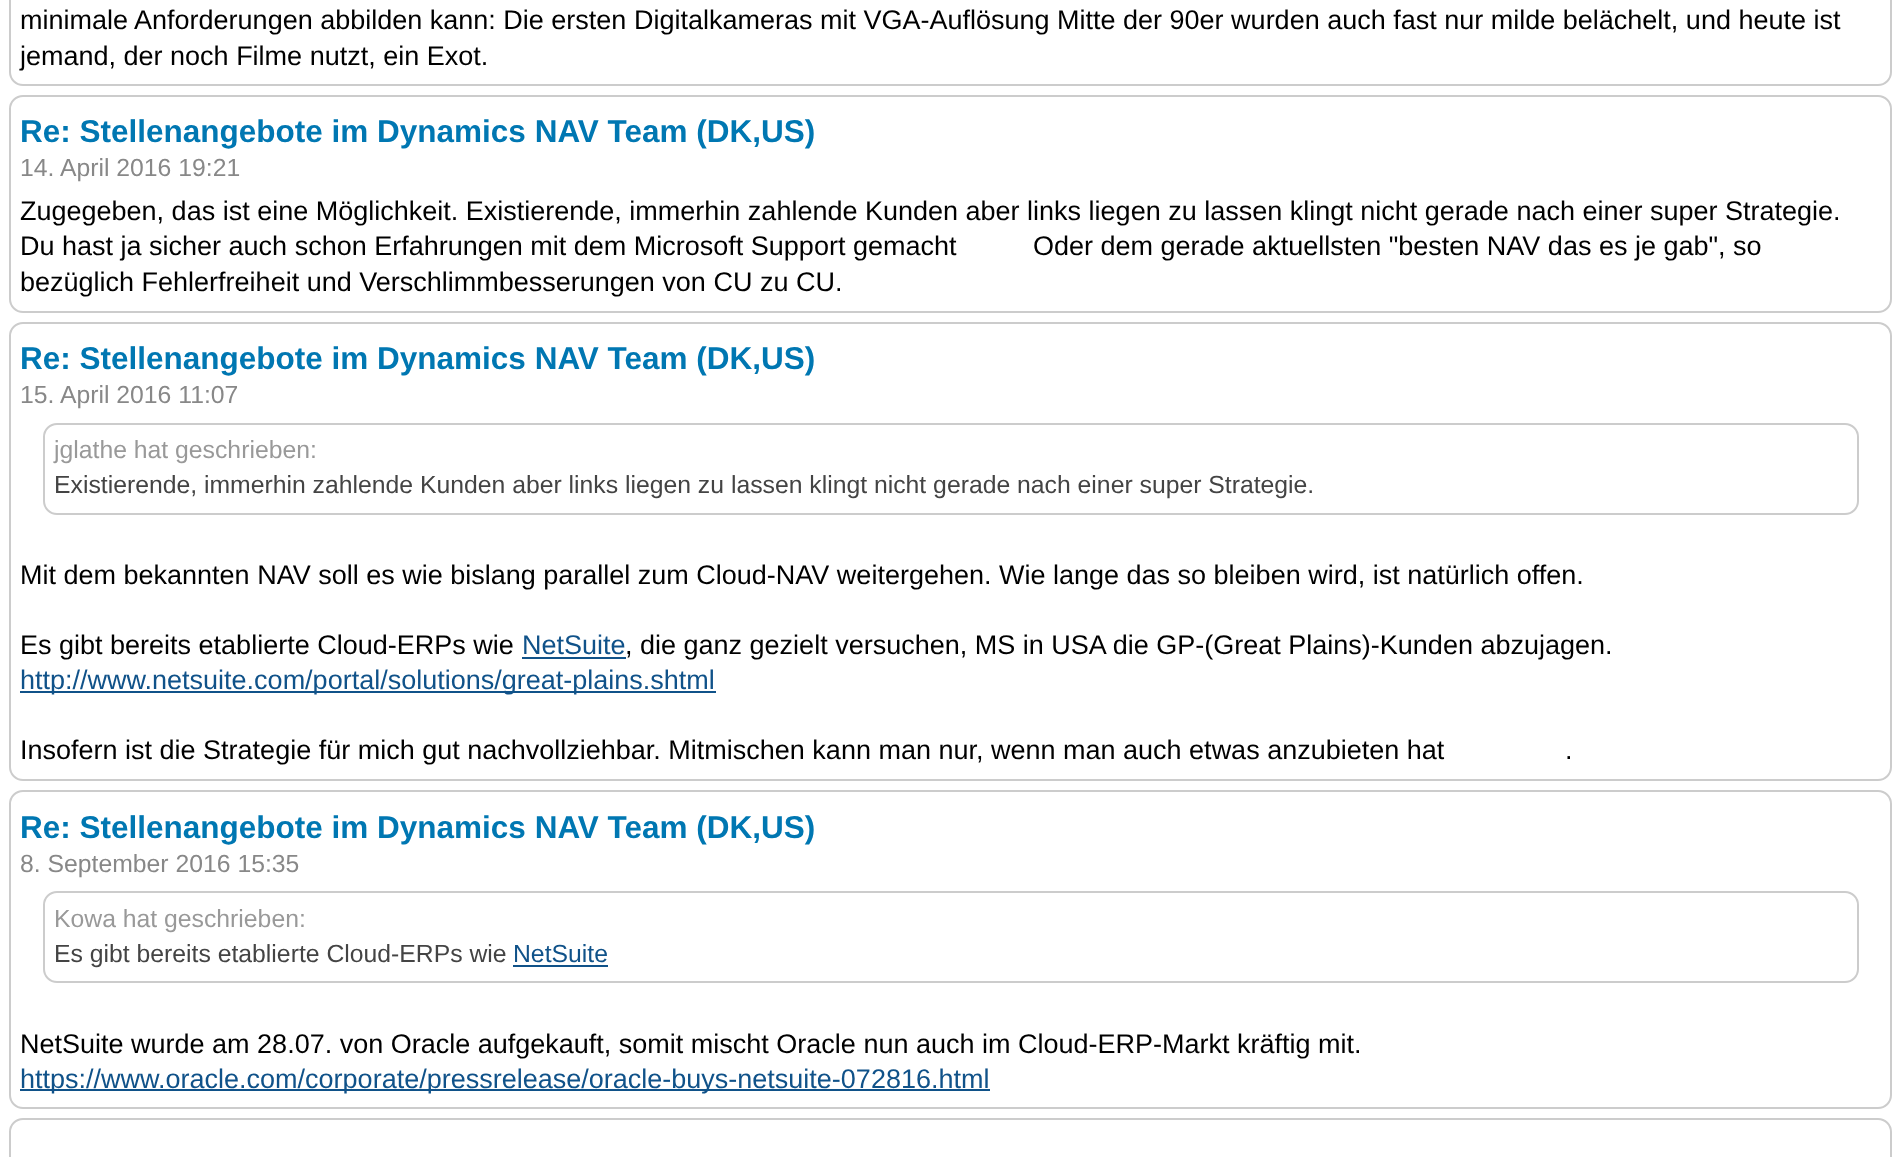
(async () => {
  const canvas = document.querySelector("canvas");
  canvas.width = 1900;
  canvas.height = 1157;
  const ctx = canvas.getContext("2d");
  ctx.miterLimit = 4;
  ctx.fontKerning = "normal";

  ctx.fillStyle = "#ffffff";
  ctx.fillRect(0, 0, 1900, 1157);
  ctx.beginPath();
  ctx.roundRect(10, -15, 1881, 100, 13);
  ctx.strokeStyle = "#cccccc";
  ctx.lineWidth = 2;
  ctx.stroke();
  ctx.beginPath();
  ctx.roundRect(10, 96, 1881, 216, 13);
  ctx.stroke();
  ctx.beginPath();
  ctx.roundRect(10, 323, 1881, 457, 13);
  ctx.stroke();
  ctx.beginPath();
  ctx.roundRect(44, 424, 1814, 90, 13);
  ctx.stroke();
  ctx.fillStyle = "#105289";
  ctx.fillRect(522, 657, 104, 2);
  ctx.fillRect(20, 691, 696, 2);
  ctx.beginPath();
  ctx.roundRect(10, 791, 1881, 317, 13);
  ctx.stroke();
  ctx.beginPath();
  ctx.roundRect(44, 892, 1814, 90, 13);
  ctx.stroke();
  ctx.fillRect(513, 965, 95, 2);
  ctx.fillRect(20, 1089, 970, 2);
  ctx.beginPath();
  ctx.roundRect(10, 1119, 1881, 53, 13);
  ctx.stroke();
  ctx.font = "27px Liberation Sans";
  ctx.fillStyle = "#000000";
  ctx.fillText("minimale Anforderungen abbilden kann: Die ersten Digitalkameras mit VGA-Auflösung Mitte der 90er wurden auch fast nur milde belächelt, und heute ist", 20, 29);
  ctx.fillText("jemand, der noch Filme nutzt, ein Exot.", 20, 65);
  ctx.font = "bold 31.5px Liberation Sans";
  ctx.fillStyle = "#0077b2";
  ctx.fillText("Re: Stellenangebote im Dynamics NAV Team (DK,US)", 20, 142);
  ctx.font = "24.75px Liberation Sans";
  ctx.fillStyle = "#888888";
  ctx.fillText("14. April 2016 19:21", 20, 176);
  ctx.font = "27px Liberation Sans";
  ctx.fillStyle = "#000000";
  for (const [text, x, y] of [
    ["Zugegeben, das ist eine Möglichkeit. Existierende, immerhin zahlende Kunden aber links liegen zu lassen klingt nicht gerade nach einer super Strategie.", 20, 220],
    ["Du hast ja sicher auch schon Erfahrungen mit dem Microsoft Support gemacht", 20, 255],
    ["Oder dem gerade aktuellsten \"besten NAV das es je gab\", so", 1033, 255],
    ["bezüglich Fehlerfreiheit und Verschlimmbesserungen von CU zu CU.", 20, 291],
  ]) {
    ctx.fillText(text, x, y);
  }
  ctx.font = "bold 31.5px Liberation Sans";
  ctx.fillStyle = "#0077b2";
  ctx.fillText("Re: Stellenangebote im Dynamics NAV Team (DK,US)", 20, 369);
  ctx.font = "24.75px Liberation Sans";
  ctx.fillStyle = "#888888";
  ctx.fillText("15. April 2016 11:07", 20, 403);
  ctx.fillStyle = "#999999";
  ctx.fillText("jglathe hat geschrieben:", 54, 458);
  ctx.fillStyle = "#444444";
  ctx.fillText("Existierende, immerhin zahlende Kunden aber links liegen zu lassen klingt nicht gerade nach einer super Strategie.", 54, 493);
  ctx.font = "27px Liberation Sans";
  ctx.fillStyle = "#000000";
  ctx.fillText("Mit dem bekannten NAV soll es wie bislang parallel zum Cloud-NAV weitergehen. Wie lange das so bleiben wird, ist natürlich offen.", 20, 584);
  ctx.fillText("Es gibt bereits etablierte Cloud-ERPs wie", 20, 654);
  ctx.fillStyle = "#105289";
  ctx.fillText("NetSuite", 522, 654);
  ctx.fillStyle = "#000000";
  ctx.fillText(", die ganz gezielt versuchen, MS in USA die GP-(Great Plains)-Kunden abzujagen.", 625, 654);
  ctx.fillStyle = "#105289";
  ctx.fillText("http://www.netsuite.com/portal/solutions/great-plains.shtml", 20, 689);
  ctx.fillStyle = "#000000";
  ctx.fillText("Insofern ist die Strategie für mich gut nachvollziehbar. Mitmischen kann man nur, wenn man auch etwas anzubieten hat", 20, 759);
  ctx.fillText(".", 1565, 759);
  ctx.font = "bold 31.5px Liberation Sans";
  ctx.fillStyle = "#0077b2";
  ctx.fillText("Re: Stellenangebote im Dynamics NAV Team (DK,US)", 20, 838);
  ctx.font = "24.75px Liberation Sans";
  ctx.fillStyle = "#888888";
  ctx.fillText("8. September 2016 15:35", 20, 872);
  ctx.fillStyle = "#999999";
  ctx.fillText("Kowa hat geschrieben:", 54, 927);
  ctx.fillStyle = "#444444";
  ctx.fillText("Es gibt bereits etablierte Cloud-ERPs wie", 54, 962);
  ctx.fillStyle = "#105289";
  ctx.fillText("NetSuite", 513, 962);
  ctx.font = "27px Liberation Sans";
  ctx.fillStyle = "#000000";
  ctx.fillText("NetSuite wurde am 28.07. von Oracle aufgekauft, somit mischt Oracle nun auch im Cloud-ERP-Markt kräftig mit.", 20, 1053);
  ctx.fillStyle = "#105289";
  ctx.fillText("https://www.oracle.com/corporate/pressrelease/oracle-buys-netsuite-072816.html", 20, 1088);
})();
